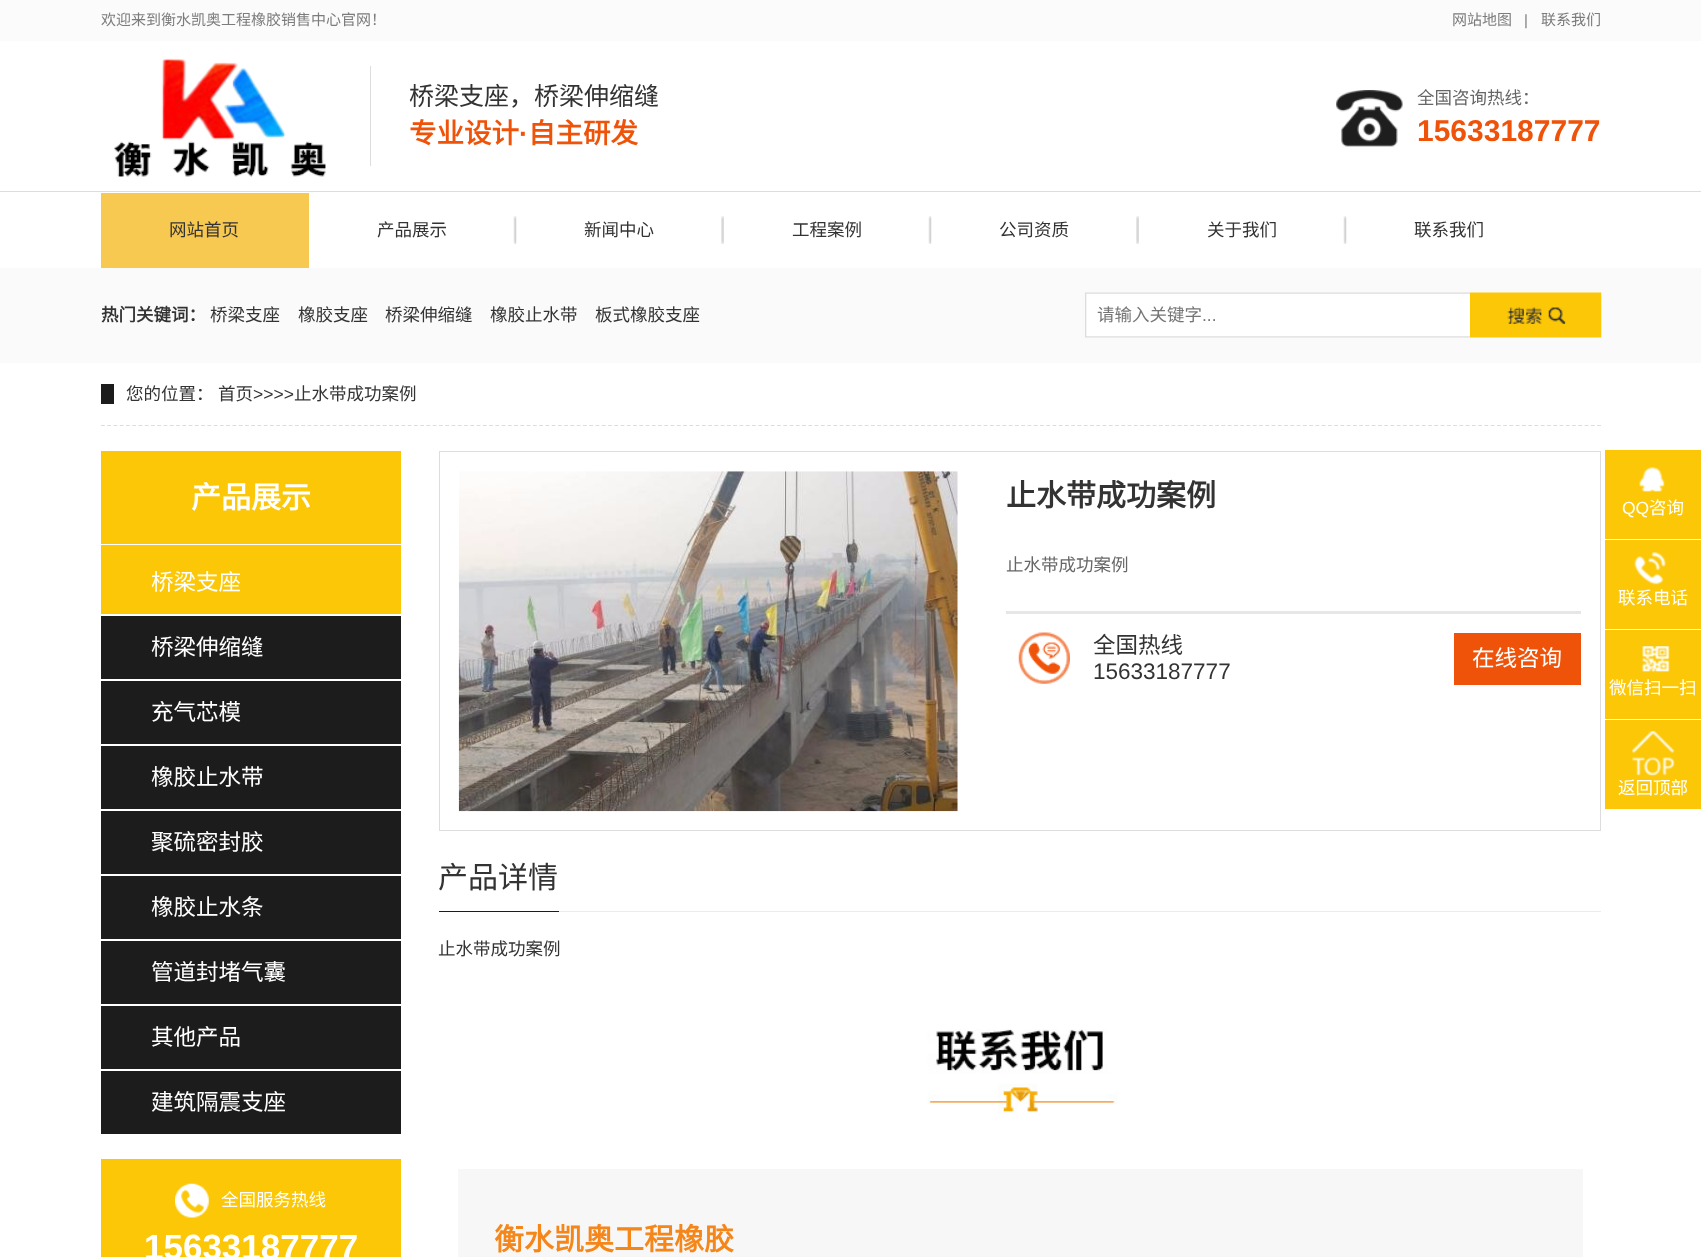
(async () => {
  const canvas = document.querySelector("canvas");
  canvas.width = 1701;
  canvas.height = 1257;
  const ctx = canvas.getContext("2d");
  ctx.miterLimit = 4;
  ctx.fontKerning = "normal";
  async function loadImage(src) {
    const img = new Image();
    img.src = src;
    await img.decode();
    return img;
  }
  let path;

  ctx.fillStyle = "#ffffff";
  ctx.fillRect(0, 0, 1701, 1257);
  ctx.fillStyle = "#fbfbfb";
  ctx.fillRect(0, 0, 1701, 41);
  ctx.drawImage(await loadImage("img/1.png"), 114, 58, 212, 119);
  ctx.fillStyle = "#dddddd";
  ctx.fillRect(370, 66, 1, 100);
  ctx.drawImage(await loadImage("img/2.png"), 1336, 90, 67, 57);
  ctx.fillRect(0, 191, 1701, 1);
  ctx.fillStyle = "#f7c951";
  ctx.fillRect(101, 193, 208, 75);
  ctx.drawImage(await loadImage("img/3.png"), 513, 216, 4, 28);
  ctx.drawImage(await loadImage("img/4.png"), 721, 216, 3, 28);
  ctx.drawImage(await loadImage("img/3.png"), 928, 216, 4, 28);
  ctx.drawImage(await loadImage("img/4.png"), 1136, 216, 3, 28);
  ctx.drawImage(await loadImage("img/3.png"), 1343, 216, 4, 28);
  ctx.fillStyle = "#fafafa";
  ctx.fillRect(0, 268, 1701, 95);
  ctx.drawImage(await loadImage("img/5.png"), 1085, 292, 385, 46);
  ctx.drawImage(await loadImage("img/6.png"), 1470, 292, 132, 46);
  path = new Path2D("M101 425.5H1601");
  ctx.strokeStyle = "#dcdcdc";
  ctx.lineWidth = 1.2;
  ctx.setLineDash([3.75, 2.51]);
  ctx.stroke(path);
  for (const [x, y, w, h, color] of [
    [101, 384, 13, 20, "#1c1c1c"],
    [101, 451, 300, 163, "#fbc707"],
    [101, 544, 300, 1, "#ffffff"],
    [101, 616, 300, 63, "#1c1c1c"],
    [101, 681, 300, 63, "#1c1c1c"],
    [101, 746, 300, 63, "#1c1c1c"],
    [101, 811, 300, 63, "#1c1c1c"],
    [101, 876, 300, 63, "#1c1c1c"],
    [101, 941, 300, 63, "#1c1c1c"],
    [101, 1006, 300, 63, "#1c1c1c"],
    [101, 1071, 300, 63, "#1c1c1c"],
    [101, 1159, 300, 98, "#fbc707"],
  ]) {
    ctx.fillStyle = color;
    ctx.fillRect(x, y, w, h);
  }
  ctx.drawImage(await loadImage("img/7.png"), 175, 1183, 34, 35);
  ctx.strokeStyle = "#dddddd";
  ctx.lineWidth = 1;
  ctx.setLineDash([]);
  ctx.strokeRect(439.5, 451.5, 1161, 379);
  ctx.drawImage(await loadImage("img/8.png"), 458, 471, 500, 341);
  ctx.drawImage(await loadImage("img/9.png"), 1018, 632, 52, 52);
  for (const [x, y, w, h, color] of [
    [1006, 611, 575, 3, "#e6e6e6"],
    [1454, 633, 127, 52, "#ef530a"],
    [559, 911, 1042, 1, "#ececeb"],
    [439, 911, 120, 1, "#1c1c1c"],
  ]) {
    ctx.fillStyle = color;
    ctx.fillRect(x, y, w, h);
  }
  ctx.drawImage(await loadImage("img/10.png"), 927, 1029, 191, 85);
  ctx.fillStyle = "#f7f7f7";
  ctx.fillRect(458, 1169, 1125, 88);
  ctx.fillStyle = "#fbc707";
  ctx.fillRect(1605, 450, 96, 89);
  ctx.drawImage(await loadImage("img/11.png"), 1639, 467, 26, 26);
  ctx.fillRect(1605, 540, 96, 89);
  ctx.drawImage(await loadImage("img/12.png"), 1634, 552, 32, 33);
  ctx.fillRect(1605, 630, 96, 89);
  ctx.drawImage(await loadImage("img/13.png"), 1642, 646, 28, 27);
  ctx.fillRect(1605, 720, 96, 89);
  ctx.drawImage(await loadImage("img/14.png"), 1632, 731, 43, 45);
  ctx.font = "15px Noto Sans CJK SC";
  ctx.fillStyle = "#7c7c7c";
  ctx.fillText("欢迎来到衡水凯奥工程橡胶销售中心官网！", 101, 25);
  ctx.fillText("网站地图", 1452, 25);
  ctx.font = "15px Liberation Sans";
  ctx.fillText("|", 1524, 25);
  ctx.font = "15px Noto Sans CJK SC";
  ctx.fillText("联系我们", 1541, 25);
  ctx.font = "25px Noto Sans CJK SC";
  ctx.fillStyle = "#333333";
  ctx.fillText("桥梁支座，桥梁伸缩缝", 409, 105);
  ctx.font = "bold 27.5px Noto Sans CJK SC";
  ctx.fillStyle = "#ef530a";
  ctx.fillText("专业设计", 409, 143);
  ctx.font = "bold 27.5px Liberation Sans";
  ctx.fillText("·", 519, 143);
  ctx.font = "bold 27.5px Noto Sans CJK SC";
  ctx.fillText("自主研发", 528, 143);
  ctx.font = "17.5px Noto Sans CJK SC";
  ctx.fillStyle = "#666666";
  ctx.fillText("全国咨询热线：", 1417, 104);
  ctx.font = "bold 30px Liberation Sans";
  ctx.fillStyle = "#ef530a";
  ctx.fillText("15633187777", 1417, 141);
  ctx.font = "17.5px Noto Sans CJK SC";
  ctx.fillStyle = "#333333";
  for (const [text, x, y] of [
    ["网站首页", 169, 236],
    ["产品展示", 377, 236],
    ["新闻中心", 584, 236],
    ["工程案例", 792, 236],
    ["公司资质", 999, 236],
    ["关于我们", 1207, 236],
    ["联系我们", 1414, 236],
  ]) {
    ctx.fillText(text, x, y);
  }
  ctx.font = "bold 17.5px Noto Sans CJK SC";
  ctx.fillText("热门关键词：", 101, 321);
  ctx.font = "17.5px Noto Sans CJK SC";
  for (const [text, x, y] of [
    ["桥梁支座", 210, 321],
    ["橡胶支座", 298, 321],
    ["桥梁伸缩缝", 385, 321],
    ["橡胶止水带", 490, 321],
    ["板式橡胶支座", 595, 321],
  ]) {
    ctx.fillText(text, x, y);
  }
  ctx.fillStyle = "#757575";
  ctx.fillText("请输入关键字", 1097, 321);
  ctx.font = "17.5px Liberation Sans";
  ctx.fillText("...", 1202, 321);
  ctx.font = "17.5px Noto Sans CJK SC";
  ctx.fillStyle = "#333333";
  ctx.fillText("您的位置：", 126, 400);
  ctx.fillText("首页", 218, 400);
  ctx.font = "17.5px Liberation Sans";
  ctx.fillText(">>>>", 253, 400);
  ctx.font = "17.5px Noto Sans CJK SC";
  ctx.fillText("止水带成功案例", 294, 400);
  ctx.font = "bold 30px Noto Sans CJK SC";
  ctx.fillStyle = "#ffffff";
  ctx.fillText("产品展示", 191, 508);
  ctx.font = "22.5px Noto Sans CJK SC";
  for (const [text, x, y] of [
    ["桥梁支座", 151, 590],
    ["桥梁伸缩缝", 151, 655],
    ["充气芯模", 151, 720],
    ["橡胶止水带", 151, 785],
    ["聚硫密封胶", 151, 850],
    ["橡胶止水条", 151, 915],
    ["管道封堵气囊", 151, 980],
    ["其他产品", 151, 1045],
    ["建筑隔震支座", 151, 1110],
  ]) {
    ctx.fillText(text, x, y);
  }
  ctx.font = "17.5px Noto Sans CJK SC";
  ctx.fillText("全国服务热线", 221, 1206);
  ctx.font = "bold 35px Liberation Sans";
  ctx.fillText("15633187777", 144, 1259);
  ctx.font = "bold 30px Noto Sans CJK SC";
  ctx.fillStyle = "#333333";
  ctx.fillText("止水带成功案例", 1006, 506);
  ctx.font = "17.5px Noto Sans CJK SC";
  ctx.fillStyle = "#666666";
  ctx.fillText("止水带成功案例", 1006, 571);
  ctx.font = "22.5px Noto Sans CJK SC";
  ctx.fillStyle = "#333333";
  ctx.fillText("全国热线", 1093, 653);
  ctx.fillStyle = "#ffffff";
  ctx.fillText("在线咨询", 1472, 666);
  ctx.font = "22.5px Liberation Sans";
  ctx.fillStyle = "#333333";
  ctx.fillText("15633187777", 1093, 679);
  ctx.font = "30px Noto Sans CJK SC";
  ctx.fillText("产品详情", 438, 888);
  ctx.font = "17.5px Noto Sans CJK SC";
  ctx.fillText("止水带成功案例", 438, 955);
  ctx.font = "bold 30px Noto Sans CJK SC";
  ctx.fillStyle = "#f5861a";
  ctx.fillText("衡水凯奥工程橡胶", 494, 1250);
  ctx.font = "17.5px Liberation Sans";
  ctx.fillStyle = "#ffffff";
  ctx.fillText("QQ", 1622, 514);
  ctx.font = "17.5px Noto Sans CJK SC";
  for (const [text, x, y] of [
    ["咨询", 1649, 514],
    ["联系电话", 1618, 604],
    ["微信扫一扫", 1609, 694],
    ["返回顶部", 1618, 794],
  ]) {
    ctx.fillText(text, x, y);
  }
})();
